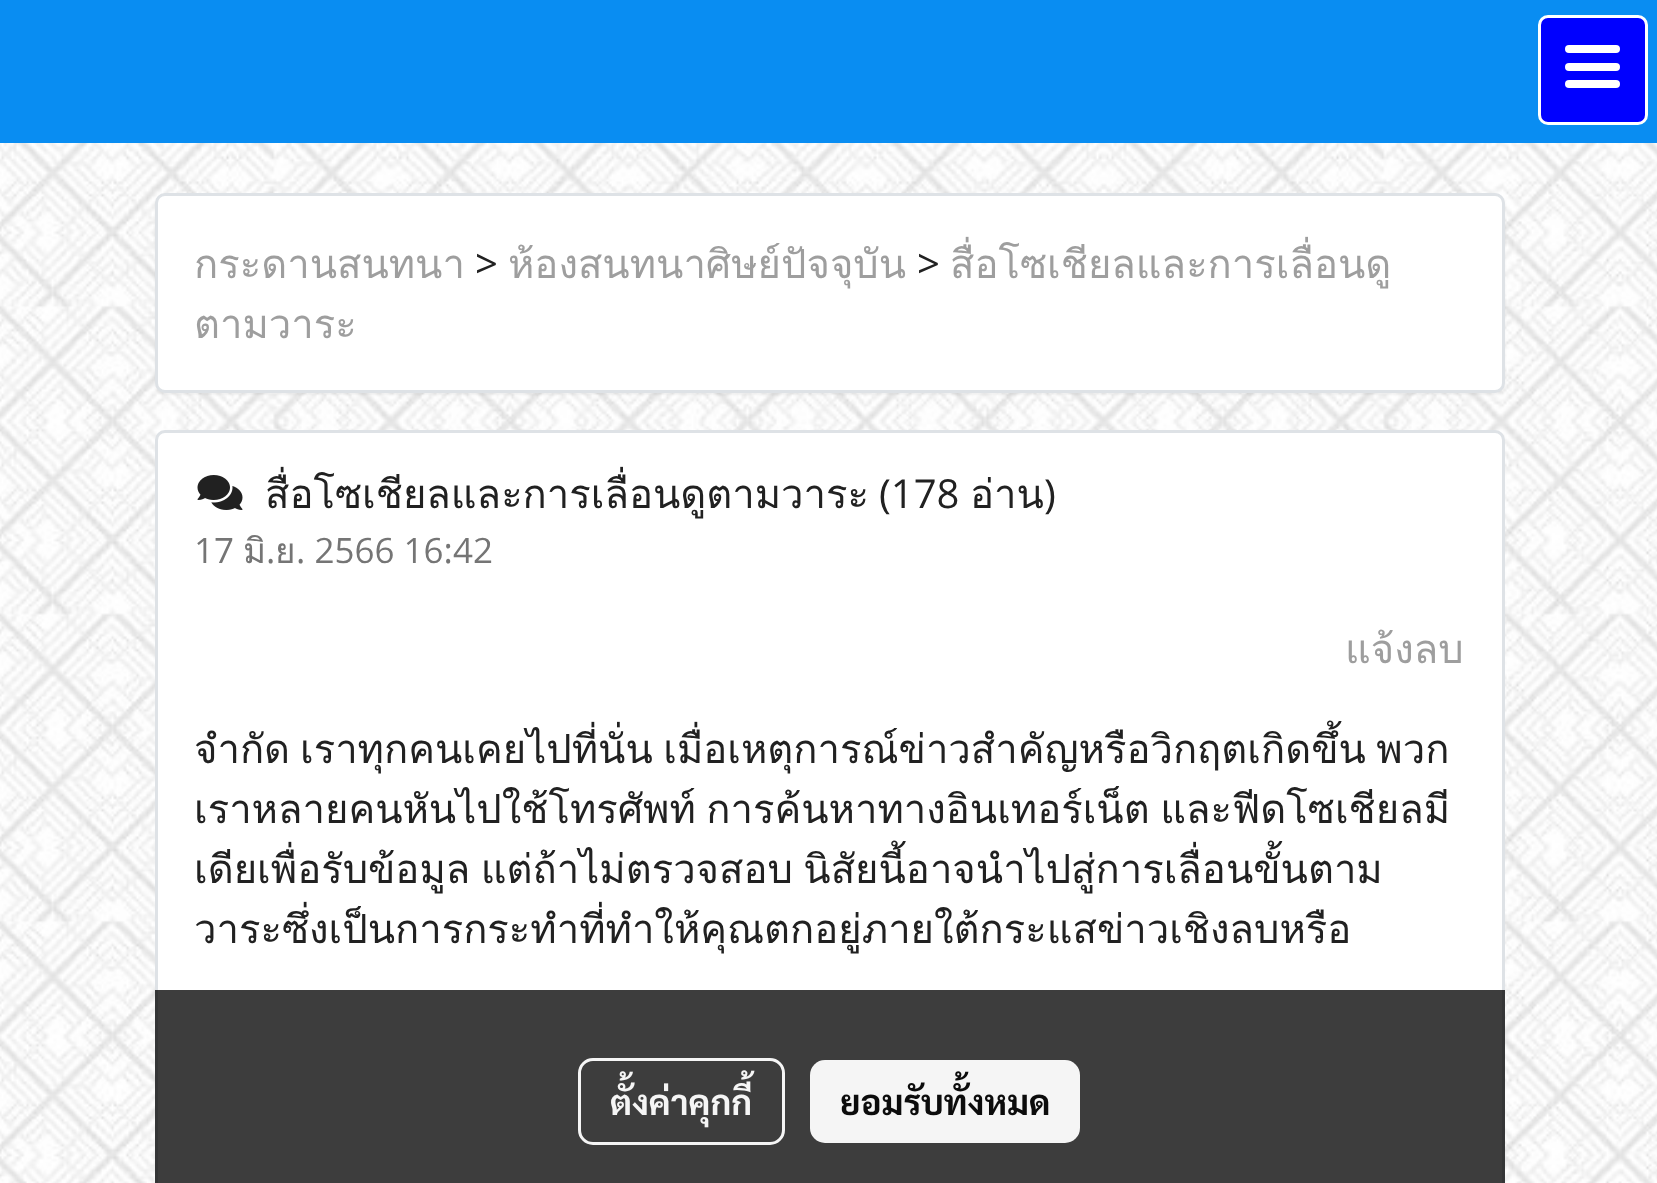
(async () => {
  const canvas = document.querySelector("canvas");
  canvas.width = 1657;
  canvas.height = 1183;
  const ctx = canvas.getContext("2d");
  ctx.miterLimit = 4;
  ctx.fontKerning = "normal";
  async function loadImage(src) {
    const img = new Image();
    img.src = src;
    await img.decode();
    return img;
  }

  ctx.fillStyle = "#ffffff";
  ctx.fillRect(0, 0, 1657, 1183);
  ctx.drawImage(await loadImage("img/1.png"), 0, 143, 1657, 1040);
  ctx.fillStyle = "#098df2";
  ctx.fillRect(0, 0, 1657, 143);
  ctx.fillStyle = "#0000ff";
  ctx.beginPath();
  ctx.roundRect(1539.5, 16.5, 107, 107, 8.5);
  ctx.fill();
  ctx.strokeStyle = "#ffffff";
  ctx.lineWidth = 3;
  ctx.stroke();
  ctx.fillStyle = "#ffffff";
  ctx.beginPath();
  ctx.roundRect(1565, 63, 55, 8, 4);
  ctx.fill();
  ctx.beginPath();
  ctx.roundRect(1565, 45, 55, 8, 4);
  ctx.fill();
  ctx.beginPath();
  ctx.roundRect(1565, 80, 55, 8, 4);
  ctx.fill();
  ctx.fillStyle = "rgba(0, 0, 0, 0.05)";
  ctx.filter = "blur(1px)";
  ctx.beginPath();
  ctx.roundRect(155, 195, 1350, 200, 10);
  ctx.fill();
  ctx.filter = "none";
  ctx.fillStyle = "#ffffff";
  ctx.beginPath();
  ctx.roundRect(156.5, 194.5, 1347, 197, 8.5);
  ctx.fill();
  ctx.strokeStyle = "#dee2e6";
  ctx.stroke();
  ctx.beginPath();
  ctx.roundRect(156.5, 431.5, 1347, 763, 8.5);
  ctx.fill();
  ctx.stroke();
  ctx.drawImage(await loadImage("img/2.png"), 197, 475, 46, 35);
  ctx.fillStyle = "rgba(0, 0, 0, 0.76)";
  ctx.fillRect(155, 990, 1350, 193);
  ctx.beginPath();
  ctx.roundRect(579.5, 1059.5, 204, 84, 13.5);
  ctx.strokeStyle = "rgba(255, 255, 255, 0.95)";
  ctx.stroke();
  ctx.fillStyle = "rgba(255, 255, 255, 0.95)";
  ctx.beginPath();
  ctx.roundRect(810, 1060, 270, 83, 15);
  ctx.fill();
  ctx.font = "40px Loma";
  ctx.fillStyle = "#9e9e9e";
  ctx.fillText("กระดานสนทนา", 194, 278);
  ctx.font = "40px Open Sans";
  ctx.fillStyle = "#212121";
  ctx.fillText(">", 475, 278);
  ctx.font = "40px Loma";
  ctx.fillStyle = "#9e9e9e";
  ctx.fillText("ห้องสนทนาศิษย์ปัจจุบัน", 508, 278);
  ctx.font = "40px Open Sans";
  ctx.fillStyle = "#212121";
  ctx.fillText(">", 917, 278);
  ctx.font = "40px Loma";
  ctx.fillStyle = "#9e9e9e";
  ctx.fillText("สื่อโซเชียลและการเลื่อนดู", 950, 278);
  ctx.fillText("ตามวาระ", 194, 338);
  ctx.fillStyle = "#212121";
  ctx.fillText("สื่อโซเชียลและการเลื่อนดูตามวาระ", 265, 508);
  ctx.font = "40px Open Sans";
  ctx.fillText("(178", 879, 508);
  ctx.font = "40px Loma";
  ctx.fillText("อ่าน", 970, 508);
  ctx.font = "40px Open Sans";
  ctx.fillText(")", 1044, 508);
  ctx.font = "35px Open Sans";
  ctx.fillStyle = "#757575";
  ctx.fillText("17", 194, 563);
  ctx.font = "35px Loma";
  ctx.fillText("มิ", 243, 563);
  ctx.font = "35px Open Sans";
  ctx.fillText(".", 266, 563);
  ctx.font = "35px Loma";
  ctx.fillText("ย", 275, 563);
  ctx.font = "35px Open Sans";
  ctx.fillText(". 2566 16:42", 296, 563);
  ctx.font = "40px Loma";
  ctx.fillStyle = "#9e9e9e";
  ctx.fillText("แจ้งลบ", 1345, 663);
  ctx.fillStyle = "#212121";
  ctx.fillText("จำกัด", 194, 763);
  ctx.wordSpacing = "-3px";
  for (const [text, x, y] of [
    ["เราทุกคนเคยไปที่นั่น เมื่อเหตุการณ์ข่าวสำคัญหรือวิกฤตเกิดขึ้น พวก", 300, 763],
    ["เราหลายคนหันไปใช้โทรศัพท์ การค้นหาทางอินเทอร์เน็ต และฟีดโซเชียลมี", 194, 823],
    ["เดียเพื่อรับข้อมูล แต่ถ้าไม่ตรวจสอบ นิสัยนี้อาจนำไปสู่การเลื่อนขั้นตาม", 194, 883],
  ]) {
    ctx.fillText(text, x, y);
  }
  ctx.wordSpacing = "0px";
  ctx.fillText("วาระซึ่งเป็นการกระทำที่ทำให้คุณตกอยู่ภายใต้กระแสข่าวเชิงลบหรือ", 194, 943);
  ctx.font = "bold 35px Sarabun";
  ctx.fillStyle = "#f5f5f5";
  ctx.fillText("ตั้งค่าคุกกี้", 610, 1115);
  ctx.fillStyle = "#0c0c0c";
  ctx.fillText("ยอมรับทั้งหมด", 840, 1115);
})();
